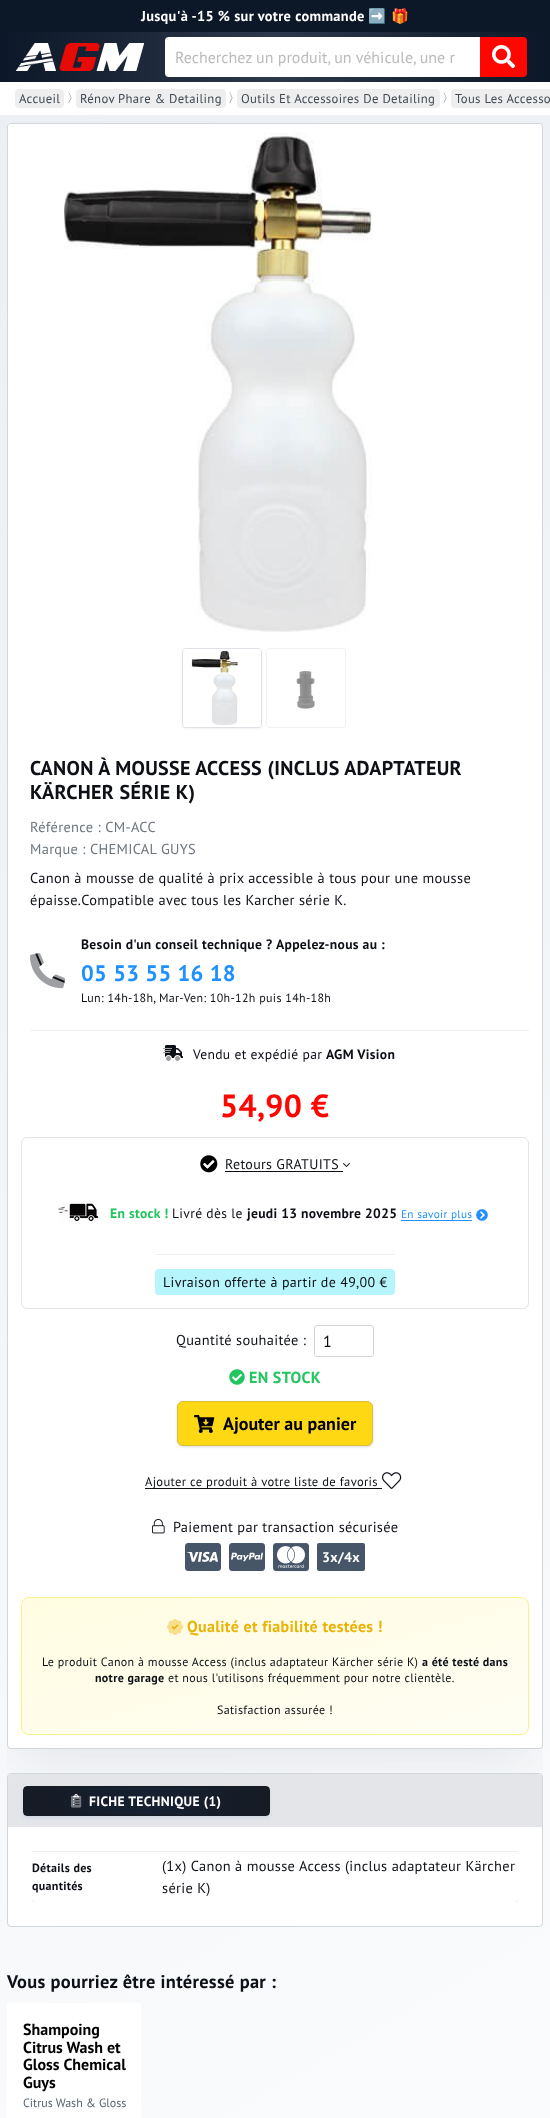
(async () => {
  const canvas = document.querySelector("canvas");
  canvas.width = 550;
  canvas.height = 2118;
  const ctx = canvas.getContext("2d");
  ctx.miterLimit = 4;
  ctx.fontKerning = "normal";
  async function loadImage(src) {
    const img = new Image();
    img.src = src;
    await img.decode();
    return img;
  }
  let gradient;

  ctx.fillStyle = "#ffffff";
  ctx.fillRect(0, 0, 550, 2118);
  gradient = ctx.createLinearGradient(-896, 517, 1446, 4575);
  gradient.addColorStop(0, "#ebeff3");
  gradient.addColorStop(0.6, "#ffffff");
  ctx.fillStyle = gradient;
  ctx.fillRect(0, 115, 550, 2003);
  ctx.fillStyle = "#0c1828";
  ctx.fillRect(0, 0, 550, 32);
  gradient = ctx.createLinearGradient(0, 57, 550, 57);
  gradient.addColorStop(0, "#0c1828");
  gradient.addColorStop(0.5, "#2d394a");
  gradient.addColorStop(1, "#0c1828");
  ctx.fillStyle = gradient;
  ctx.fillRect(0, 32, 550, 50);
  ctx.drawImage(await loadImage("img/1.png"), 15, 43, 129, 28);
  ctx.fillStyle = "#ffffff";
  ctx.beginPath();
  ctx.roundRect(165, 37, 315, 40, [4, 0, 0, 4]);
  ctx.fill();
  ctx.fillStyle = "#ff0600";
  ctx.beginPath();
  ctx.roundRect(480, 37, 47, 40, [0, 4, 4, 0]);
  ctx.fill();
  ctx.drawImage(await loadImage("img/2.png"), 492, 45, 24, 24);
  ctx.fillStyle = "#eeeeee";
  ctx.beginPath();
  ctx.roundRect(15, 89, 49, 19, 4);
  ctx.fill();
  ctx.beginPath();
  ctx.roundRect(76, 89, 150, 19, 4);
  ctx.fill();
  ctx.beginPath();
  ctx.roundRect(237, 89, 203, 19, 4);
  ctx.fill();
  ctx.beginPath();
  ctx.roundRect(451, 89, 99, 19, [4, 0, 0, 4]);
  ctx.fill();
  ctx.save();
  ctx.beginPath();
  ctx.rect(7, 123, 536, 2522);
  ctx.clip();
  ctx.fillStyle = "#e5e7eb";
  ctx.filter = "blur(25px)";
  ctx.beginPath();
  ctx.rect(19, 160, 512, 1602);
  ctx.fill();
  ctx.filter = "none";
  ctx.restore();
  ctx.fillStyle = "#ffffff";
  ctx.beginPath();
  ctx.roundRect(7.5, 123.5, 535, 1625, 3.5);
  ctx.fill();
  ctx.strokeStyle = "#d0d6da";
  ctx.stroke();
  ctx.drawImage(await loadImage("img/3.png"), 8, 124, 364, 508);
  ctx.fillStyle = "rgba(0, 0, 0, 0.05)";
  ctx.filter = "blur(1px)";
  ctx.beginPath();
  ctx.roundRect(182, 649, 80, 80, 4);
  ctx.fill();
  ctx.filter = "none";
  ctx.beginPath();
  ctx.roundRect(182.5, 648.5, 79, 79, 3.5);
  ctx.strokeStyle = "#dee2e6";
  ctx.stroke();
  ctx.drawImage(await loadImage("img/4.png"), 183, 649, 78, 78);
  ctx.beginPath();
  ctx.roundRect(266.5, 648.5, 79, 79, 3.5);
  ctx.strokeStyle = "#eff1f3";
  ctx.stroke();
  ctx.drawImage(await loadImage("img/5.png"), 296, 671, 19, 38);
  ctx.fillStyle = "#f0f0f0";
  ctx.fillRect(30, 1030, 499, 1);
  ctx.drawImage(await loadImage("img/6.png"), 30, 953, 36, 36);
  ctx.drawImage(await loadImage("img/7.png"), 163, 1045, 20, 16);
  ctx.beginPath();
  ctx.roundRect(21.5, 1137.5, 507, 171, 5.5);
  ctx.strokeStyle = "#e5e5e5";
  ctx.stroke();
  ctx.drawImage(await loadImage("img/8.png"), 200, 1155, 18, 18);
  ctx.fillStyle = "#0d1016";
  ctx.fillRect(225, 1171, 118, 1);
  ctx.drawImage(await loadImage("img/9.png"), 343, 1163, 7, 4);
  ctx.drawImage(await loadImage("img/10.png"), 58, 1201, 41, 23);
  ctx.fillStyle = "#1e90ff";
  ctx.fillRect(401, 1220, 71, 1);
  ctx.drawImage(await loadImage("img/11.png"), 476, 1209, 12, 12);
  ctx.fillStyle = "#f0f0f0";
  ctx.fillRect(155, 1254, 240, 1);
  ctx.fillStyle = "#b7f5fd";
  ctx.beginPath();
  ctx.roundRect(155, 1269, 240, 26, 4);
  ctx.fill();
  ctx.beginPath();
  ctx.roundRect(314.5, 1325.5, 59, 31, 2.5);
  ctx.strokeStyle = "#d0d6da";
  ctx.stroke();
  ctx.drawImage(await loadImage("img/12.png"), 229, 1369, 16, 16);
  ctx.fillStyle = "rgba(0, 0, 0, 0.1)";
  ctx.filter = "blur(1px)";
  ctx.beginPath();
  ctx.roundRect(178, 1403, 194, 43, 5);
  ctx.fill();
  ctx.filter = "none";
  ctx.filter = "blur(1.5px)";
  ctx.beginPath();
  ctx.roundRect(177, 1402, 196, 45, 6);
  ctx.fill();
  ctx.filter = "none";
  ctx.fillStyle = "#ffd814";
  ctx.beginPath();
  ctx.roundRect(177.5, 1401.5, 195, 44, 5.5);
  ctx.fill();
  ctx.strokeStyle = "#ddbf37";
  ctx.stroke();
  ctx.drawImage(await loadImage("img/13.png"), 194, 1415, 21, 18);
  ctx.fillStyle = "#0d1016";
  ctx.fillRect(145, 1488, 237, 1);
  ctx.drawImage(await loadImage("img/14.png"), 382, 1472, 20, 17);
  ctx.drawImage(await loadImage("img/15.png"), 152, 1519, 13, 15);
  ctx.drawImage(await loadImage("img/16.png"), 185, 1543, 36, 28);
  ctx.drawImage(await loadImage("img/17.png"), 229, 1543, 36, 28);
  ctx.drawImage(await loadImage("img/18.png"), 273, 1543, 36, 29);
  ctx.fillStyle = "#475569";
  ctx.beginPath();
  ctx.roundRect(317, 1543, 48, 28, 2);
  ctx.fill();
  ctx.save();
  ctx.beginPath();
  ctx.roundRect(21, 1597, 508, 138, 8);
  ctx.clip();
  gradient = ctx.createLinearGradient(241, 1539, 309, 1793);
  gradient.addColorStop(0, "#fffce1");
  gradient.addColorStop(1, "#fffef4");
  ctx.fillStyle = gradient;
  ctx.fillRect(22, 1598, 506, 136);
  ctx.restore();
  ctx.beginPath();
  ctx.roundRect(21.5, 1597.5, 507, 137, 7.5);
  ctx.strokeStyle = "#fef08a";
  ctx.stroke();
  ctx.drawImage(await loadImage("img/19.png"), 167, 1619, 16, 16);
  ctx.fillStyle = "#ffffff";
  ctx.beginPath();
  ctx.roundRect(7.5, 1773.5, 535, 153, 3.5);
  ctx.fill();
  ctx.strokeStyle = "#d0d6da";
  ctx.stroke();
  ctx.fillStyle = "#e3e5e9";
  ctx.beginPath();
  ctx.roundRect(8, 1774, 534, 53, [4, 4, 0, 0]);
  ctx.fill();
  ctx.fillStyle = "rgba(69, 101, 173, 0.1)";
  ctx.filter = "blur(1.5px)";
  ctx.beginPath();
  ctx.roundRect(23, 1788, 247, 30, 4);
  ctx.fill();
  ctx.filter = "none";
  ctx.save();
  ctx.beginPath();
  ctx.roundRect(23, 1786, 247, 30, 4);
  ctx.clip();
  gradient = ctx.createLinearGradient(24, 1801, 269, 1801);
  gradient.addColorStop(0, "#161b24");
  gradient.addColorStop(0.5, "#152131");
  gradient.addColorStop(1, "#161b24");
  ctx.fillStyle = gradient;
  ctx.fillRect(24, 1787, 245, 28);
  ctx.restore();
  ctx.beginPath();
  ctx.roundRect(23.5, 1786.5, 246, 29, 3.5);
  ctx.strokeStyle = "#161b24";
  ctx.stroke();
  ctx.drawImage(await loadImage("img/20.png"), 71, 1794, 11, 14);
  ctx.save();
  ctx.beginPath();
  ctx.rect(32, 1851, 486, 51);
  ctx.clip();
  ctx.fillStyle = "rgba(0, 0, 0, 0.1)";
  ctx.filter = "blur(1.5px)";
  ctx.beginPath();
  ctx.roundRect(32, 1854, 486, 50, 4);
  ctx.fill();
  ctx.filter = "none";
  ctx.restore();
  ctx.fillStyle = "#ffffff";
  ctx.beginPath();
  ctx.roundRect(32, 1852, 486, 50, 4);
  ctx.fill();
  ctx.fillStyle = "#eeeeee";
  ctx.fillRect(32, 1851, 486, 1);
  ctx.fillStyle = "#ffffff";
  ctx.fillRect(7, 2003, 134, 115);
  ctx.letterSpacing = "0.32px";
  ctx.font = "bold 14.4px PT Sans";
  ctx.fillText("Jusqu'à -15 % sur votre commande", 141, 21);
  ctx.font = "bold 14.4px Noto Color Emoji";
  ctx.fillText("➡️", 368, 21);
  ctx.fillText("🎁", 391, 21);
  ctx.letterSpacing = "0px";
  ctx.font = "16px PT Sans";
  ctx.fillStyle = "#bbbbbb";
  ctx.fillText("Recherchez un produit, un véhicule, une r", 175, 63);
  ctx.letterSpacing = "0.32px";
  ctx.font = "12.75px PT Sans";
  ctx.fillStyle = "#404a54";
  ctx.fillText("Accueil", 19, 103);
  ctx.font = "500 12px WenQuanYi Zen Hei";
  ctx.fillStyle = "#6c757d";
  ctx.fillText("〉", 67, 102);
  ctx.font = "12.75px PT Sans";
  ctx.fillStyle = "#404a54";
  ctx.fillText("Rénov Phare & Detailing", 80, 103);
  ctx.font = "500 12px WenQuanYi Zen Hei";
  ctx.fillStyle = "#6c757d";
  ctx.fillText("〉", 228, 102);
  ctx.font = "12.75px PT Sans";
  ctx.fillStyle = "#404a54";
  ctx.fillText("Outils Et Accessoires De Detailing", 241, 103);
  ctx.font = "500 12px WenQuanYi Zen Hei";
  ctx.fillStyle = "#6c757d";
  ctx.fillText("〉", 442, 102);
  ctx.font = "12.75px PT Sans";
  ctx.fillStyle = "#404a54";
  ctx.fillText("Tous Les Accesso", 455, 103);
  ctx.font = "bold 20px PT Sans";
  ctx.fillStyle = "#0d1016";
  ctx.fillText("CANON À MOUSSE ACCESS (INCLUS ADAPTATEUR", 30, 775);
  ctx.fillText("KÄRCHER SÉRIE K)", 30, 799);
  ctx.font = "14.4px PT Sans";
  ctx.fillStyle = "#6c757d";
  ctx.fillText("Référence : CM-ACC", 30, 832);
  ctx.fillText("Marque : CHEMICAL GUYS", 30, 854);
  ctx.fillStyle = "#0d1016";
  ctx.fillText("Canon à mousse de qualité à prix accessible à tous pour une mousse", 30, 883);
  ctx.fillText("épaisse.Compatible avec tous les Karcher série K.", 30, 905);
  ctx.font = "bold 13.6px PT Sans";
  ctx.fillText("Besoin d'un conseil technique ?", 81, 949);
  ctx.fillText("Appelez-nous au :", 276, 949);
  ctx.font = "bold 22.5px PT Sans";
  ctx.fillStyle = "#1e90ff";
  ctx.fillText("05 53 55 16 18", 81, 981);
  ctx.font = "12px PT Sans";
  ctx.fillStyle = "#0d1016";
  ctx.fillText("Lun: 14h-18h, Mar-Ven: 10h-12h puis 14h-18h", 81, 1002);
  ctx.font = "13.6px PT Sans";
  ctx.fillText("Vendu et expédié par", 193, 1059);
  ctx.font = "bold 13.6px PT Sans";
  ctx.fillText("AGM Vision", 326, 1059);
  ctx.font = "bold 32px PT Sans";
  ctx.fillStyle = "#ff0600";
  ctx.fillText("54,90 €", 220, 1117);
  ctx.font = "14px PT Sans";
  ctx.fillStyle = "#0d1016";
  ctx.fillText("Retours GRATUITS", 225, 1169);
  ctx.font = "bold 13.6px PT Sans";
  ctx.fillStyle = "#22c55e";
  ctx.fillText("En stock !", 110, 1218);
  ctx.font = "13.6px PT Sans";
  ctx.fillStyle = "#0d1016";
  ctx.fillText("Livré dès le", 172, 1218);
  ctx.font = "bold 13.6px PT Sans";
  ctx.fillText("jeudi 13 novembre 2025", 247, 1218);
  ctx.font = "11.25px PT Sans";
  ctx.fillStyle = "#1e90ff";
  ctx.fillText("En savoir plus", 401, 1218);
  ctx.font = "14px PT Sans";
  ctx.fillStyle = "#0d1016";
  ctx.fillText("Livraison offerte à partir de 49,00 €", 163, 1287);
  ctx.font = "14.4px PT Sans";
  ctx.fillText("Quantité souhaitée :", 176, 1345);
  ctx.letterSpacing = "0px";
  ctx.font = "16px PT Sans";
  ctx.fillText("1", 323, 1347);
  ctx.letterSpacing = "0.32px";
  ctx.font = "bold 16px PT Sans";
  ctx.fillStyle = "#22c55e";
  ctx.fillText("EN STOCK", 249, 1383);
  ctx.letterSpacing = "0px";
  ctx.font = "bold 18px PT Sans";
  ctx.fillStyle = "#000000";
  ctx.fillText("Ajouter au panier", 223, 1430);
  ctx.letterSpacing = "0.32px";
  ctx.font = "12.6px PT Sans";
  ctx.fillStyle = "#0d1016";
  ctx.fillText("Ajouter ce produit à votre liste de favoris", 145, 1486);
  ctx.font = "14.4px PT Sans";
  ctx.fillText("Paiement par transaction sécurisée", 173, 1532);
  ctx.font = "bold 14px PT Sans";
  ctx.fillStyle = "#ffffff";
  ctx.fillText("3x/4x", 322, 1562);
  ctx.font = "bold 16px PT Sans";
  ctx.fillStyle = "#eab308";
  ctx.fillText("Qualité et fiabilité testées !", 187, 1632);
  ctx.font = "12px PT Sans";
  ctx.fillStyle = "#0d1016";
  ctx.fillText("Le produit Canon à mousse Access (inclus adaptateur Kärcher série K)", 42, 1666);
  ctx.font = "bold 12px PT Sans";
  ctx.fillText("a été testé dans", 422, 1666);
  ctx.fillText("notre garage", 95, 1682);
  ctx.font = "12px PT Sans";
  ctx.fillText("et nous l'utilisons fréquemment pour notre clientèle.", 168, 1682);
  ctx.fillText("Satisfaction assurée !", 217, 1714);
  ctx.font = "bold 13.6px PT Sans";
  ctx.fillStyle = "#ffffff";
  ctx.fillText("FICHE TECHNIQUE (1)", 89, 1806);
  ctx.font = "bold 12px PT Sans";
  ctx.fillStyle = "#0d1016";
  ctx.fillText("Détails des", 32, 1872);
  ctx.fillText("quantités", 32, 1890);
  ctx.font = "14.4px PT Sans";
  ctx.fillText("(1x) Canon à mousse Access (inclus adaptateur Kärcher", 162, 1871);
  ctx.fillText("série K)", 162, 1893);
  ctx.font = "bold 18.4px PT Sans";
  ctx.fillText("Vous pourriez être intéressé par :", 7, 1988);
  ctx.letterSpacing = "0px";
  ctx.font = "bold 16px PT Sans";
  ctx.fillStyle = "#000000";
  for (const [text, x, y] of [
    ["Shampoing", 23, 2035],
    ["Citrus Wash et", 23, 2053],
    ["Gloss Chemical", 23, 2070],
    ["Guys", 23, 2088],
  ]) {
    ctx.fillText(text, x, y);
  }
  ctx.font = "12px PT Sans";
  ctx.fillStyle = "#576571";
  ctx.fillText("Citrus Wash & Gloss", 23, 2107);
})();
